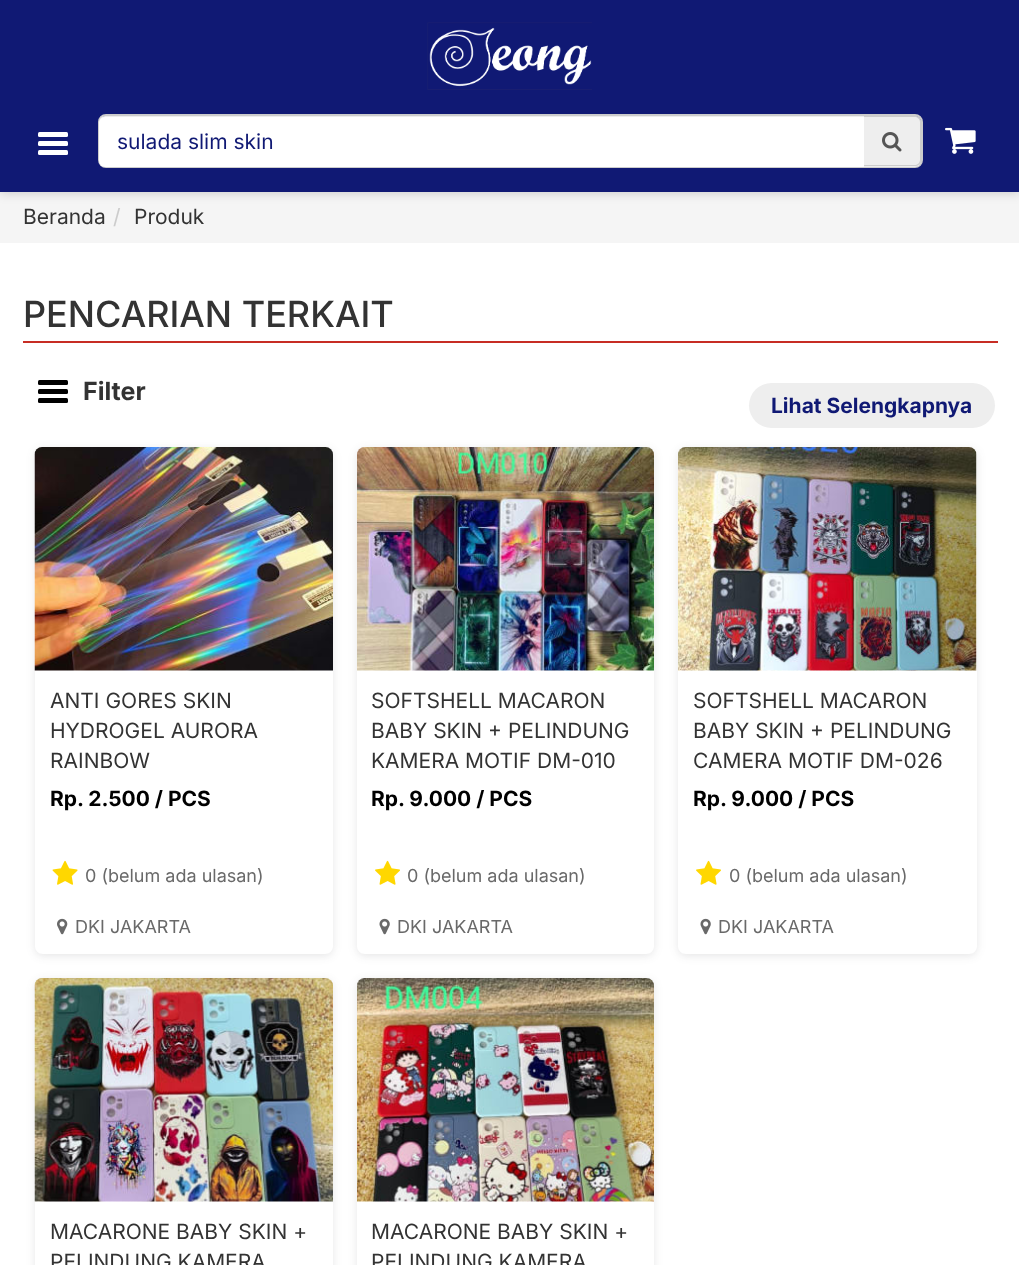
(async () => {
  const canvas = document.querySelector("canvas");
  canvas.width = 1019;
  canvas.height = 1265;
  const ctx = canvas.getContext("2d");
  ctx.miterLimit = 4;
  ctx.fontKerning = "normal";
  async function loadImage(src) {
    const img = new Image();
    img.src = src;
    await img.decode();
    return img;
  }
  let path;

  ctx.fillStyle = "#ffffff";
  ctx.fillRect(0, 0, 1019, 1265);
  ctx.fillStyle = "#f5f5f5";
  ctx.fillRect(0, 192, 1019, 51);
  ctx.fillStyle = "rgba(0, 0, 0, 0.2)";
  ctx.filter = "blur(6px)";
  ctx.beginPath();
  ctx.rect(0, 0, 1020, 192);
  ctx.fill();
  ctx.filter = "none";
  ctx.fillStyle = "#101974";
  ctx.fillRect(0, 0, 1019, 192);
  ctx.drawImage(await loadImage("img/1.png"), 427, 22, 165, 68);
  ctx.fillStyle = "#ffffff";
  ctx.beginPath();
  ctx.roundRect(38, 132, 30, 5, 1.5);
  ctx.fill();
  ctx.beginPath();
  ctx.roundRect(38, 141, 30, 5, 1.5);
  ctx.fill();
  ctx.beginPath();
  ctx.roundRect(38, 150, 30, 5, 1.5);
  ctx.fill();
  ctx.beginPath();
  ctx.roundRect(99, 115, 823, 52, 7);
  ctx.strokeStyle = "#cccccc";
  ctx.lineWidth = 2;
  ctx.stroke();
  ctx.beginPath();
  ctx.roundRect(99, 116, 765, 51, [6, 0, 0, 6]);
  ctx.fill();
  ctx.fillStyle = "rgba(0, 0, 0, 0.07)";
  path = new Path2D("M105 117C102 117 99 120 99 123C99 119 101 116 105 116H864V117Z");
  ctx.fill(path);
  ctx.fillStyle = "#eeeeee";
  ctx.beginPath();
  ctx.roundRect(864, 116, 57, 51, [0, 6, 6, 0]);
  ctx.fill();
  ctx.fillStyle = "#cccccc";
  path = new Path2D("M864 116V117H915C917 117 920 119 920 122V160C920 163 917 165 915 165H864V166H915C918 166 921 164 921 160V122C921 119 918 116 915 116Z");
  ctx.fill(path);
  ctx.drawImage(await loadImage("img/2.png"), 882, 132, 20, 20);
  ctx.drawImage(await loadImage("img/3.png"), 945, 127, 31, 27);
  ctx.fillStyle = "#c72d24";
  ctx.fillRect(23, 341, 975, 2);
  ctx.fillStyle = "#000000";
  ctx.beginPath();
  ctx.roundRect(38, 380, 30, 5, 1.5);
  ctx.fill();
  ctx.beginPath();
  ctx.roundRect(38, 389, 30, 5, 1.5);
  ctx.fill();
  ctx.beginPath();
  ctx.roundRect(38, 398, 30, 5, 1.5);
  ctx.fill();
  ctx.fillStyle = "#eeeeee";
  ctx.beginPath();
  ctx.roundRect(749, 383, 246, 45, 22.5);
  ctx.fill();
  ctx.save();
  path = new Path2D("M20 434H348V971H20ZM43 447H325C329.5 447 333 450.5 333 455V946C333 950.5 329.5 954 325 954H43C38.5 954 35 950.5 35 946V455C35 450.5 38.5 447 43 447Z");
  ctx.clip(path, "evenodd");
  ctx.fillStyle = "rgba(49, 53, 59, 0.12)";
  ctx.filter = "blur(4.5px)";
  ctx.beginPath();
  ctx.roundRect(35, 449, 298, 507, 8);
  ctx.fill();
  ctx.filter = "none";
  ctx.restore();
  ctx.drawImage(await loadImage("img/4.png"), 34, 447, 299, 224);
  ctx.drawImage(await loadImage("img/5.png"), 52, 860, 26, 25);
  ctx.drawImage(await loadImage("img/6.png"), 57, 918, 11, 17);
  ctx.save();
  path = new Path2D("M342 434H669V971H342ZM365 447H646C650.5 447 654 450.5 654 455V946C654 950.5 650.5 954 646 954H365C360.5 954 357 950.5 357 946V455C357 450.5 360.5 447 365 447Z");
  ctx.clip(path, "evenodd");
  ctx.fillStyle = "rgba(49, 53, 59, 0.12)";
  ctx.filter = "blur(4.5px)";
  ctx.beginPath();
  ctx.roundRect(357, 449, 297, 507, 8);
  ctx.fill();
  ctx.filter = "none";
  ctx.restore();
  ctx.drawImage(await loadImage("img/7.png"), 357, 447, 297, 224);
  ctx.drawImage(await loadImage("img/8.png"), 375, 860, 25, 25);
  ctx.drawImage(await loadImage("img/9.png"), 379, 918, 11, 17);
  ctx.save();
  path = new Path2D("M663 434H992V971H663ZM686 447H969C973.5 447 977 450.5 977 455V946C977 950.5 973.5 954 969 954H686C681.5 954 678 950.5 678 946V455C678 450.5 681.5 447 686 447Z");
  ctx.clip(path, "evenodd");
  ctx.fillStyle = "rgba(49, 53, 59, 0.12)";
  ctx.filter = "blur(4.5px)";
  ctx.beginPath();
  ctx.roundRect(678, 449, 299, 507, 8);
  ctx.fill();
  ctx.filter = "none";
  ctx.restore();
  ctx.drawImage(await loadImage("img/10.png"), 678, 447, 299, 224);
  ctx.drawImage(await loadImage("img/8.png"), 696, 860, 25, 25);
  ctx.drawImage(await loadImage("img/9.png"), 700, 918, 11, 17);
  ctx.save();
  path = new Path2D("M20 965H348V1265H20ZM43 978H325C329.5 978 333 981.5 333 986V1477C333 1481.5 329.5 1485 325 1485H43C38.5 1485 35 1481.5 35 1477V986C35 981.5 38.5 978 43 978Z");
  ctx.clip(path, "evenodd");
  ctx.fillStyle = "rgba(49, 53, 59, 0.12)";
  ctx.filter = "blur(4.5px)";
  ctx.beginPath();
  ctx.roundRect(35, 980, 298, 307, 8);
  ctx.fill();
  ctx.filter = "none";
  ctx.restore();
  ctx.drawImage(await loadImage("img/11.png"), 34, 978, 299, 224);
  ctx.save();
  path = new Path2D("M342 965H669V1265H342ZM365 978H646C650.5 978 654 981.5 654 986V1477C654 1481.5 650.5 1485 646 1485H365C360.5 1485 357 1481.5 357 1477V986C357 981.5 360.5 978 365 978Z");
  ctx.clip(path, "evenodd");
  ctx.fillStyle = "rgba(49, 53, 59, 0.12)";
  ctx.filter = "blur(4.5px)";
  ctx.beginPath();
  ctx.roundRect(357, 980, 297, 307, 8);
  ctx.fill();
  ctx.filter = "none";
  ctx.restore();
  ctx.drawImage(await loadImage("img/12.png"), 357, 978, 297, 224);
  ctx.font = "21px Inter";
  ctx.fillStyle = "#101974";
  ctx.fillText("sulada slim skin", 117, 149);
  ctx.fillStyle = "#333333";
  ctx.fillText("Beranda", 23, 224);
  ctx.fillStyle = "#cccccc";
  ctx.fillText("/", 113, 224);
  ctx.fillStyle = "#333333";
  ctx.fillText("Produk", 134, 224);
  ctx.font = "500 36px Inter";
  ctx.fillText("PENCARIAN TERKAIT", 23, 327);
  ctx.font = "bold 25px Inter";
  ctx.fillText("Filter", 83, 400);
  ctx.font = "bold 21px Inter";
  ctx.fillStyle = "#101974";
  ctx.fillText("Lihat Selengkapnya", 771, 413);
  ctx.font = "21px Inter";
  ctx.fillStyle = "#333333";
  for (const [text, x, y] of [
    ["ANTI GORES SKIN", 50, 708],
    ["HYDROGEL AURORA", 50, 738],
    ["RAINBOW", 50, 768],
  ]) {
    ctx.fillText(text, x, y);
  }
  ctx.font = "bold 21px Inter";
  ctx.fillStyle = "#000000";
  ctx.fillText("Rp. 2.500 / PCS", 50, 806);
  ctx.font = "18px Inter";
  ctx.fillStyle = "#696969";
  ctx.fillText("0 (belum ada ulasan)", 85, 882);
  ctx.fillText("DKI JAKARTA", 75, 933);
  ctx.font = "21px Inter";
  ctx.fillStyle = "#333333";
  for (const [text, x, y] of [
    ["SOFTSHELL MACARON", 371, 708],
    ["BABY SKIN + PELINDUNG", 371, 738],
    ["KAMERA MOTIF DM-010", 371, 768],
  ]) {
    ctx.fillText(text, x, y);
  }
  ctx.font = "bold 21px Inter";
  ctx.fillStyle = "#000000";
  ctx.fillText("Rp. 9.000 / PCS", 371, 806);
  ctx.font = "18px Inter";
  ctx.fillStyle = "#696969";
  ctx.fillText("0 (belum ada ulasan)", 407, 882);
  ctx.fillText("DKI JAKARTA", 397, 933);
  ctx.font = "21px Inter";
  ctx.fillStyle = "#333333";
  for (const [text, x, y] of [
    ["SOFTSHELL MACARON", 693, 708],
    ["BABY SKIN + PELINDUNG", 693, 738],
    ["CAMERA MOTIF DM-026", 693, 768],
  ]) {
    ctx.fillText(text, x, y);
  }
  ctx.font = "bold 21px Inter";
  ctx.fillStyle = "#000000";
  ctx.fillText("Rp. 9.000 / PCS", 693, 806);
  ctx.font = "18px Inter";
  ctx.fillStyle = "#696969";
  ctx.fillText("0 (belum ada ulasan)", 729, 882);
  ctx.fillText("DKI JAKARTA", 718, 933);
  ctx.font = "21px Inter";
  ctx.fillStyle = "#333333";
  for (const [text, x, y] of [
    ["MACARONE BABY SKIN +", 50, 1239],
    ["PELINDUNG KAMERA", 50, 1269],
    ["MACARONE BABY SKIN +", 371, 1239],
    ["PELINDUNG KAMERA", 371, 1269],
  ]) {
    ctx.fillText(text, x, y);
  }
})();
